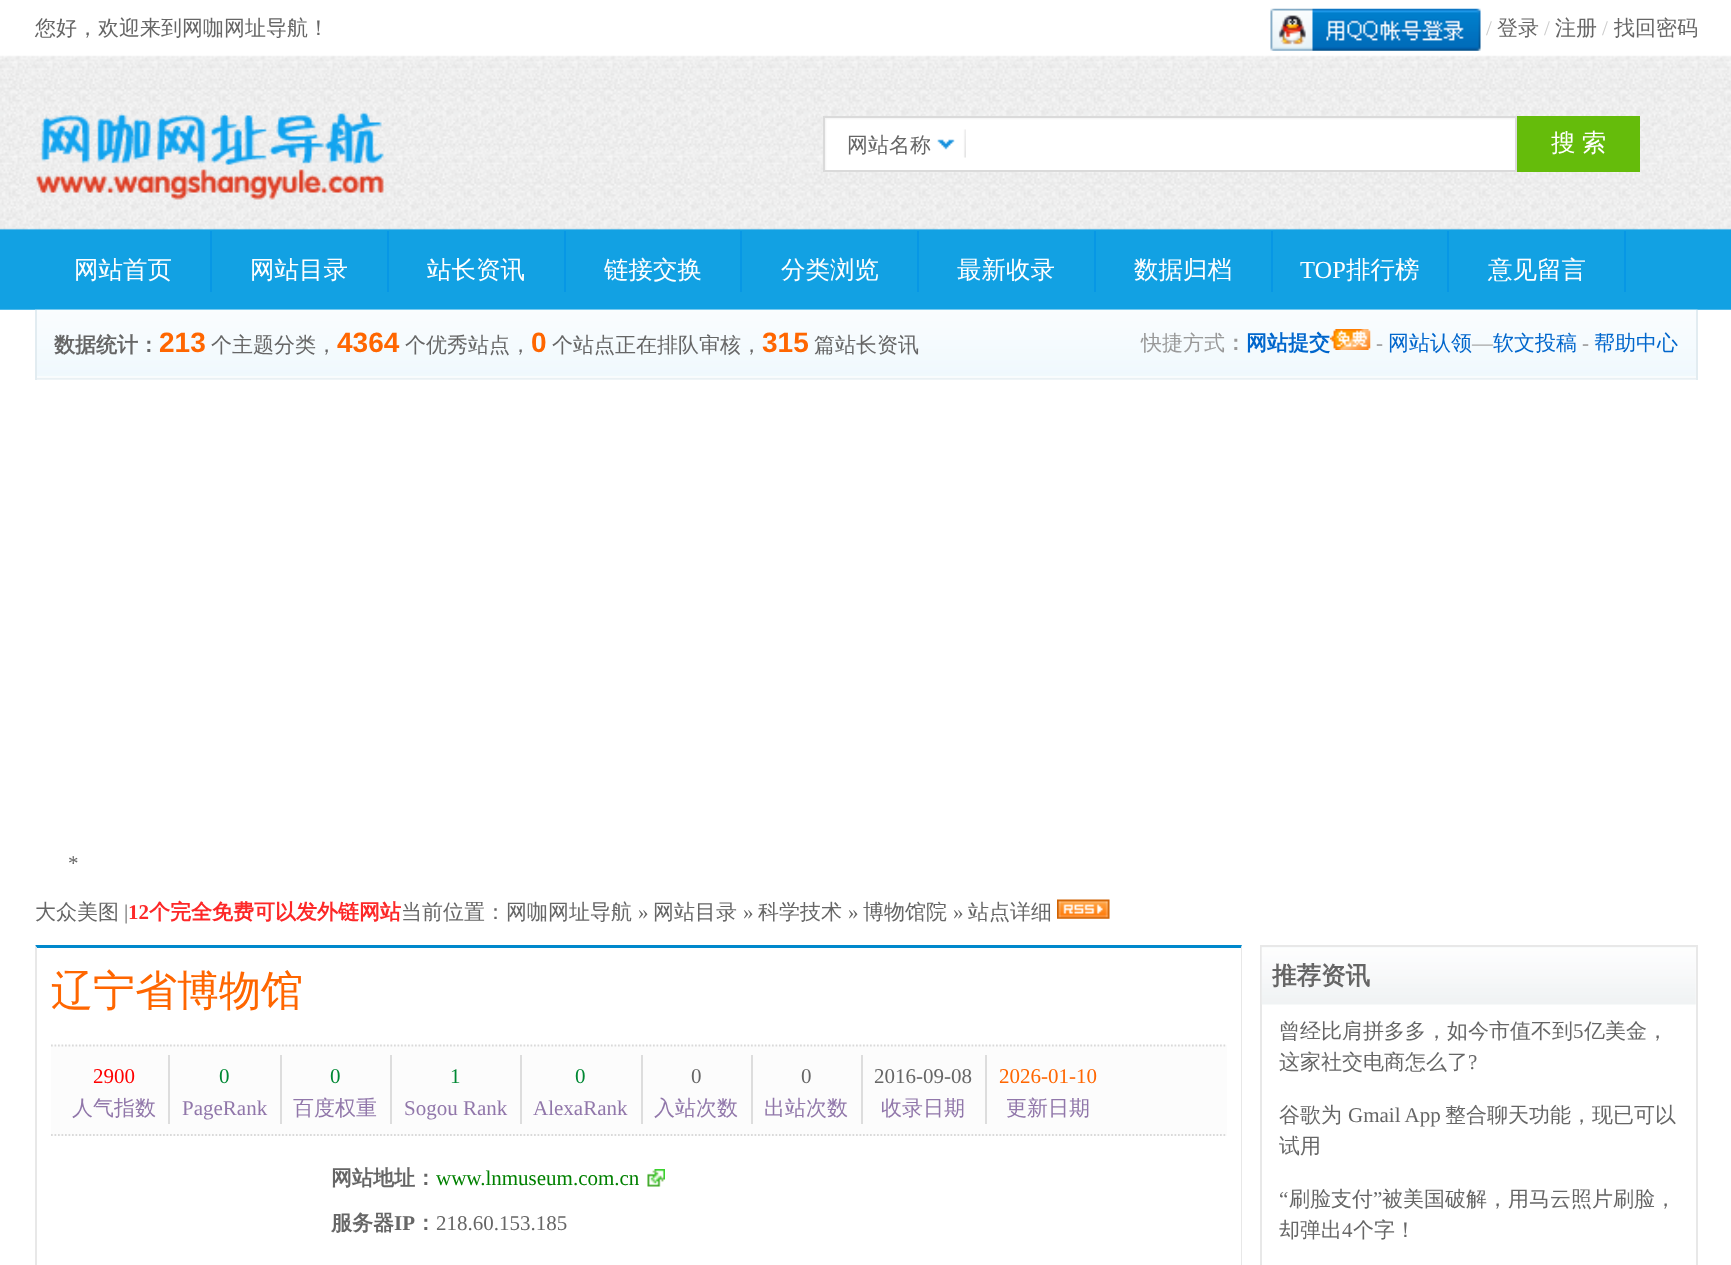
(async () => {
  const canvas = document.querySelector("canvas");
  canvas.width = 1731;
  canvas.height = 1265;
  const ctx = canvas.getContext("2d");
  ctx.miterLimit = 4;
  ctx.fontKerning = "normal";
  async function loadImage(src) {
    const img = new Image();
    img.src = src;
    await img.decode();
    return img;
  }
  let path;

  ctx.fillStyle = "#ffffff";
  ctx.fillRect(0, 0, 1731, 1265);
  ctx.drawImage(await loadImage("img/1.png"), 0, 55, 1731, 255);
  ctx.drawImage(await loadImage("img/2.png"), 1270, 8, 211, 43);
  ctx.drawImage(await loadImage("img/3.png"), 36, 111, 348, 89);
  ctx.drawImage(await loadImage("img/4.png"), 825, 118, 690, 52);
  ctx.strokeStyle = "#dadada";
  ctx.lineWidth = 2;
  ctx.strokeRect(824, 117, 692, 54);
  ctx.fillStyle = "#65bc0b";
  ctx.fillRect(1517, 116, 123, 56);
  ctx.drawImage(await loadImage("img/5.png"), 937, 129, 29, 29);
  for (const [x, y, w, h, color] of [
    [210, 231, 2, 61, "#0797e5"],
    [387, 231, 2, 61, "#0797e5"],
    [564, 231, 2, 61, "#0797e5"],
    [740, 231, 2, 61, "#0797e5"],
    [917, 231, 2, 61, "#0797e5"],
    [1094, 231, 2, 61, "#0797e5"],
    [1271, 231, 2, 61, "#0797e5"],
    [1447, 231, 2, 61, "#0797e5"],
    [1624, 231, 2, 61, "#0797e5"],
  ]) {
    ctx.fillStyle = color;
    ctx.fillRect(x, y, w, h);
  }
  ctx.drawImage(await loadImage("img/6.png"), 35, 309, 1663, 71);
  ctx.fillStyle = "#e2ecf1";
  ctx.fillRect(1696, 310, 2, 70);
  ctx.fillRect(35, 310, 2, 70);
  ctx.drawImage(await loadImage("img/7.png"), 1330, 329, 41, 21);
  ctx.drawImage(await loadImage("img/8.png"), 1057, 899, 53, 20);
  ctx.fillStyle = "#0088cc";
  path = new Path2D("M35 945H1242L1241 948H37Z");
  ctx.fill(path);
  ctx.fillStyle = "#e8e8e8";
  path = new Path2D("M1242 945V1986L1241 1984V948Z");
  ctx.fill(path);
  path = new Path2D("M35 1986V945L37 948V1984Z");
  ctx.fill(path);
  ctx.fillStyle = "#fcfcfc";
  ctx.fillRect(51, 1045, 1176, 91);
  path = new Path2D("M51 1045.5H1227");
  ctx.lineWidth = 1.8;
  ctx.setLineDash([1.75, 1.75]);
  ctx.stroke(path);
  path = new Path2D("M51 1135H1227");
  ctx.stroke(path);
  for (const [x, y, w, h, color] of [
    [168, 1055, 2, 69, "#dddddd"],
    [280, 1055, 2, 69, "#dddddd"],
    [390, 1055, 2, 69, "#dddddd"],
    [520, 1055, 2, 69, "#dddddd"],
    [641, 1055, 2, 69, "#dddddd"],
    [751, 1055, 2, 69, "#dddddd"],
    [861, 1055, 2, 69, "#dddddd"],
    [985, 1055, 2, 69, "#dddddd"],
  ]) {
    ctx.fillStyle = color;
    ctx.fillRect(x, y, w, h);
  }
  ctx.drawImage(await loadImage("img/9.png"), 647, 1169, 18, 18);
  ctx.strokeStyle = "#e8e8e8";
  ctx.lineWidth = 2;
  ctx.setLineDash([]);
  ctx.strokeRect(1261, 946, 436, 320);
  ctx.drawImage(await loadImage("img/10.png"), 1261, 947, 435, 58);
  ctx.font = "500 21px WenQuanYi Zen Hei";
  ctx.fillStyle = "#666666";
  ctx.fillText("您好，欢迎来到网咖网址导航！", 35, 35);
  ctx.font = "21px Liberation Serif";
  ctx.fillStyle = "#cccccc";
  ctx.fillText("/", 1486, 35);
  ctx.font = "500 21px WenQuanYi Zen Hei";
  ctx.fillStyle = "#666666";
  ctx.fillText("登录", 1497, 35);
  ctx.font = "21px Liberation Serif";
  ctx.fillStyle = "#cccccc";
  ctx.fillText("/", 1544, 35);
  ctx.font = "500 21px WenQuanYi Zen Hei";
  ctx.fillStyle = "#666666";
  ctx.fillText("注册", 1555, 35);
  ctx.font = "21px Liberation Serif";
  ctx.fillStyle = "#cccccc";
  ctx.fillText("/", 1602, 35);
  ctx.font = "500 21px WenQuanYi Zen Hei";
  ctx.fillStyle = "#666666";
  ctx.fillText("找回密码", 1614, 35);
  ctx.wordSpacing = "-1px";
  ctx.font = "500 24.5px WenQuanYi Zen Hei";
  ctx.fillStyle = "#ffffff";
  ctx.fillText("搜 索", 1551, 151);
  ctx.wordSpacing = "0px";
  ctx.font = "500 21px WenQuanYi Zen Hei";
  ctx.fillStyle = "#666666";
  ctx.fillText("网站名称", 847, 152);
  ctx.font = "500 24.5px WenQuanYi Zen Hei";
  ctx.fillStyle = "#ffffff";
  for (const [text, x, y] of [
    ["网站首页", 74, 278],
    ["网站目录", 250, 278],
    ["站长资讯", 427, 278],
    ["链接交换", 604, 278],
    ["分类浏览", 781, 278],
    ["最新收录", 957, 278],
    ["数据归档", 1134, 278],
  ]) {
    ctx.fillText(text, x, y);
  }
  ctx.font = "24.5px Liberation Serif";
  ctx.fillText("TOP", 1300, 278);
  ctx.font = "500 24.5px WenQuanYi Zen Hei";
  ctx.fillText("排行榜", 1346, 278);
  ctx.fillText("意见留言", 1488, 278);
  ctx.font = "bold 21px WenQuanYi Zen Hei";
  ctx.fillStyle = "#666666";
  ctx.fillText("数据统计：", 54, 352);
  ctx.font = "bold 28px Liberation Sans";
  ctx.fillStyle = "#ff6600";
  ctx.fillText("213", 159, 352);
  ctx.font = "500 21px WenQuanYi Zen Hei";
  ctx.fillStyle = "#666666";
  ctx.fillText("个主题分类，", 211, 352);
  ctx.font = "bold 28px Liberation Sans";
  ctx.fillStyle = "#ff6600";
  ctx.fillText("4364", 337, 352);
  ctx.font = "500 21px WenQuanYi Zen Hei";
  ctx.fillStyle = "#666666";
  ctx.fillText("个优秀站点，", 405, 352);
  ctx.font = "bold 28px Liberation Sans";
  ctx.fillStyle = "#ff6600";
  ctx.fillText("0", 531, 352);
  ctx.font = "500 21px WenQuanYi Zen Hei";
  ctx.fillStyle = "#666666";
  ctx.fillText("个站点正在排队审核，", 552, 352);
  ctx.font = "bold 28px Liberation Sans";
  ctx.fillStyle = "#ff6600";
  ctx.fillText("315", 762, 352);
  ctx.font = "500 21px WenQuanYi Zen Hei";
  ctx.fillStyle = "#666666";
  ctx.fillText("篇站长资讯", 814, 352);
  ctx.fillStyle = "#999999";
  ctx.fillText("快捷方式", 1141, 350);
  ctx.font = "bold 21px WenQuanYi Zen Hei";
  ctx.fillText("：", 1225, 350);
  ctx.fillStyle = "#0066cc";
  ctx.fillText("网站提交", 1246, 350);
  ctx.font = "21px Liberation Serif";
  ctx.fillStyle = "#999999";
  ctx.fillText("-", 1376, 350);
  ctx.font = "500 21px WenQuanYi Zen Hei";
  ctx.fillStyle = "#0066cc";
  ctx.fillText("网站认领", 1388, 350);
  ctx.font = "21px Liberation Serif";
  ctx.fillStyle = "#999999";
  ctx.fillText("—", 1472, 350);
  ctx.font = "500 21px WenQuanYi Zen Hei";
  ctx.fillStyle = "#0066cc";
  ctx.fillText("软文投稿", 1493, 350);
  ctx.font = "21px Liberation Serif";
  ctx.fillStyle = "#999999";
  ctx.fillText("-", 1582, 350);
  ctx.font = "500 21px WenQuanYi Zen Hei";
  ctx.fillStyle = "#0066cc";
  ctx.fillText("帮助中心", 1594, 350);
  ctx.font = "21px Liberation Serif";
  ctx.fillStyle = "#666666";
  ctx.fillText("*", 68, 870);
  ctx.font = "500 21px WenQuanYi Zen Hei";
  ctx.fillText("大众美图", 35, 919);
  ctx.font = "21px Liberation Serif";
  ctx.fillText("|", 124, 919);
  ctx.font = "bold 21px Liberation Serif";
  ctx.fillStyle = "#fd2828";
  ctx.fillText("12", 128, 919);
  ctx.font = "bold 21px WenQuanYi Zen Hei";
  ctx.fillText("个完全免费可以发外链网站", 149, 919);
  ctx.font = "500 21px WenQuanYi Zen Hei";
  ctx.fillStyle = "#666666";
  ctx.fillText("当前位置：网咖网址导航", 401, 919);
  ctx.font = "21px Liberation Serif";
  ctx.fillText("»", 638, 919);
  ctx.font = "500 21px WenQuanYi Zen Hei";
  ctx.fillText("网站目录", 653, 919);
  ctx.font = "21px Liberation Serif";
  ctx.fillText("»", 743, 919);
  ctx.font = "500 21px WenQuanYi Zen Hei";
  ctx.fillText("科学技术", 758, 919);
  ctx.font = "21px Liberation Serif";
  ctx.fillText("»", 848, 919);
  ctx.font = "500 21px WenQuanYi Zen Hei";
  ctx.fillText("博物馆院", 863, 919);
  ctx.font = "21px Liberation Serif";
  ctx.fillText("»", 953, 919);
  ctx.font = "500 21px WenQuanYi Zen Hei";
  ctx.fillText("站点详细", 968, 919);
  ctx.font = "500 42px WenQuanYi Zen Hei";
  ctx.fillStyle = "#ff6600";
  ctx.fillText("辽宁省博物馆", 51, 1005);
  ctx.font = "21px Liberation Serif";
  ctx.fillStyle = "#ff0000";
  ctx.fillText("2900", 93, 1083);
  ctx.font = "500 21px WenQuanYi Zen Hei";
  ctx.fillStyle = "#9177aa";
  ctx.fillText("人气指数", 72, 1115);
  ctx.font = "21px Liberation Serif";
  ctx.fillStyle = "#008833";
  ctx.fillText("0", 219, 1083);
  ctx.fillStyle = "#9177aa";
  ctx.fillText("PageRank", 182, 1115);
  ctx.fillStyle = "#008833";
  ctx.fillText("0", 330, 1083);
  ctx.font = "500 21px WenQuanYi Zen Hei";
  ctx.fillStyle = "#9177aa";
  ctx.fillText("百度权重", 293, 1115);
  ctx.font = "21px Liberation Serif";
  ctx.fillStyle = "#008833";
  ctx.fillText("1", 450, 1083);
  ctx.fillStyle = "#9177aa";
  ctx.fillText("Sogou Rank", 404, 1115);
  ctx.fillStyle = "#008833";
  ctx.fillText("0", 575, 1083);
  ctx.fillStyle = "#9177aa";
  ctx.fillText("AlexaRank", 533, 1115);
  ctx.fillStyle = "#666666";
  ctx.fillText("0", 691, 1083);
  ctx.font = "500 21px WenQuanYi Zen Hei";
  ctx.fillStyle = "#9177aa";
  ctx.fillText("入站次数", 654, 1115);
  ctx.font = "21px Liberation Serif";
  ctx.fillStyle = "#666666";
  ctx.fillText("0", 801, 1083);
  ctx.font = "500 21px WenQuanYi Zen Hei";
  ctx.fillStyle = "#9177aa";
  ctx.fillText("出站次数", 764, 1115);
  ctx.font = "21px Liberation Serif";
  ctx.fillStyle = "#666666";
  ctx.fillText("2016-09-08", 874, 1083);
  ctx.font = "500 21px WenQuanYi Zen Hei";
  ctx.fillStyle = "#9177aa";
  ctx.fillText("收录日期", 881, 1115);
  ctx.font = "21px Liberation Serif";
  ctx.fillStyle = "#ff6600";
  ctx.fillText("2026-01-10", 999, 1083);
  ctx.font = "500 21px WenQuanYi Zen Hei";
  ctx.fillStyle = "#9177aa";
  ctx.fillText("更新日期", 1006, 1115);
  ctx.font = "bold 21px WenQuanYi Zen Hei";
  ctx.fillStyle = "#666666";
  ctx.fillText("网站地址：", 331, 1185);
  ctx.font = "21px Liberation Serif";
  ctx.fillStyle = "#008000";
  ctx.fillText("www.lnmuseum.com.cn", 436, 1185);
  ctx.font = "bold 21px WenQuanYi Zen Hei";
  ctx.fillStyle = "#666666";
  ctx.fillText("服务器", 331, 1230);
  ctx.font = "bold 21px Liberation Serif";
  ctx.fillText("IP", 394, 1230);
  ctx.font = "bold 21px WenQuanYi Zen Hei";
  ctx.fillText("：", 415, 1230);
  ctx.font = "21px Liberation Serif";
  ctx.fillText("218.60.153.185", 436, 1230);
  ctx.font = "bold 24.5px WenQuanYi Zen Hei";
  ctx.fillText("推荐资讯", 1272, 984);
  ctx.font = "500 21px WenQuanYi Zen Hei";
  ctx.fillText("曾经比肩拼多多，如今市值不到", 1279, 1038);
  ctx.font = "21px Liberation Serif";
  ctx.fillText("5", 1573, 1038);
  ctx.font = "500 21px WenQuanYi Zen Hei";
  ctx.fillText("亿美金，", 1584, 1038);
  ctx.fillText("这家社交电商怎么了", 1279, 1069);
  ctx.font = "21px Liberation Serif";
  ctx.fillText("?", 1468, 1069);
  ctx.font = "500 21px WenQuanYi Zen Hei";
  ctx.fillText("谷歌为", 1279, 1122);
  ctx.font = "21px Liberation Serif";
  ctx.fillText("Gmail App", 1348, 1122);
  ctx.font = "500 21px WenQuanYi Zen Hei";
  ctx.fillText("整合聊天功能，现已可以", 1445, 1122);
  ctx.fillText("试用", 1279, 1153);
  ctx.font = "21px Liberation Serif";
  ctx.fillText("“", 1279, 1206);
  ctx.font = "500 21px WenQuanYi Zen Hei";
  ctx.fillText("刷脸支付", 1289, 1206);
  ctx.font = "21px Liberation Serif";
  ctx.fillText("”", 1373, 1206);
  ctx.font = "500 21px WenQuanYi Zen Hei";
  ctx.fillText("被美国破解，用马云照片刷脸，", 1382, 1206);
  ctx.fillText("却弹出", 1279, 1237);
  ctx.font = "21px Liberation Serif";
  ctx.fillText("4", 1342, 1237);
  ctx.font = "500 21px WenQuanYi Zen Hei";
  ctx.fillText("个字！", 1353, 1237);
})();
